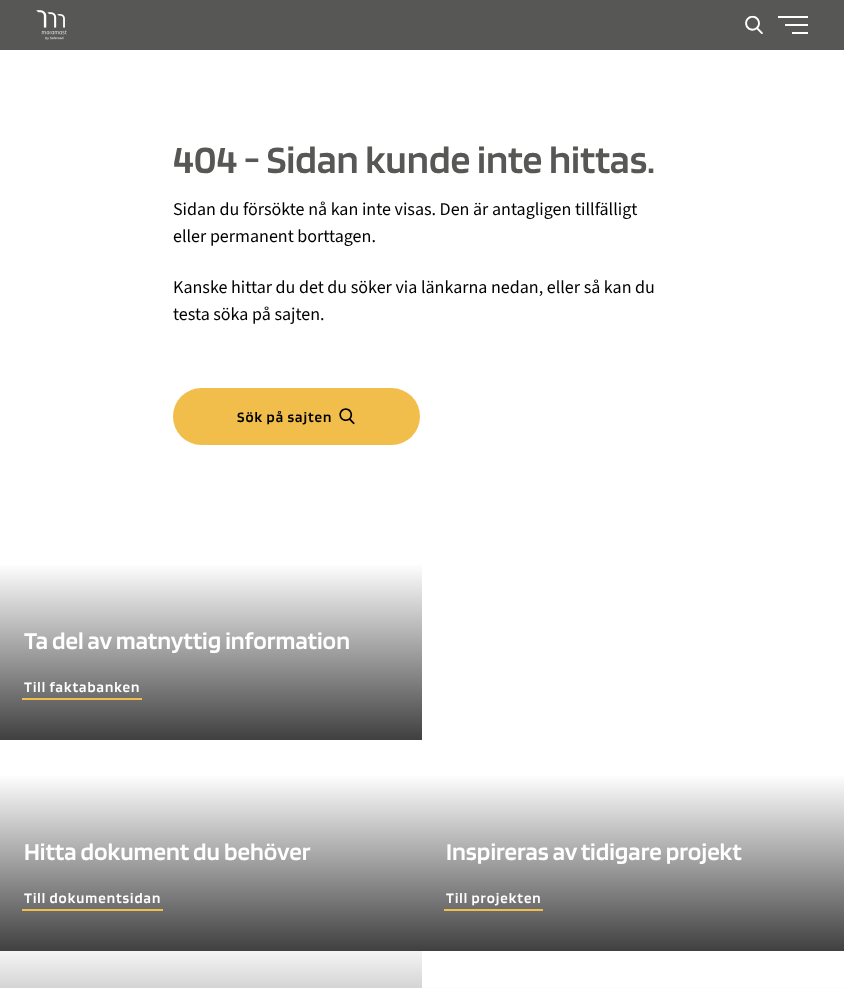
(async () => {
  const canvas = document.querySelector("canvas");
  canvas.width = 844;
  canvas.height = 988;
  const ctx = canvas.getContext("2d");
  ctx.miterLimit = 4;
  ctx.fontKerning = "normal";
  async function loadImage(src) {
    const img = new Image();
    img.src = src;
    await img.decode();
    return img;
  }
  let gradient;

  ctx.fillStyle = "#ffffff";
  ctx.fillRect(0, 0, 844, 988);
  ctx.fillStyle = "#575756";
  ctx.fillRect(0, 0, 844, 50);
  ctx.drawImage(await loadImage("img/1.png"), 36, 10, 31, 30);
  ctx.drawImage(await loadImage("img/2.png"), 745, 15, 18, 19);
  for (const [x, y, w, h, color] of [
    [778, 16, 30, 2, "#ffffff"],
    [785, 24, 23, 2, "#ffffff"],
    [792, 32, 16, 2, "#ffffff"],
  ]) {
    ctx.fillStyle = color;
    ctx.fillRect(x, y, w, h);
  }
  ctx.fillStyle = "#f1be4c";
  ctx.beginPath();
  ctx.roundRect(173, 388, 247, 57, 28.5);
  ctx.fill();
  ctx.drawImage(await loadImage("img/3.png"), 339, 408, 16, 17);
  gradient = ctx.createLinearGradient(211, 563, 211, 740);
  gradient.addColorStop(0, "#ffffff");
  gradient.addColorStop(1, "#404040");
  ctx.fillStyle = gradient;
  ctx.fillRect(0, 565, 422, 175);
  ctx.fillStyle = "#f1be4c";
  ctx.fillRect(22, 698, 120, 2);
  gradient = ctx.createLinearGradient(211, 774, 211, 951);
  gradient.addColorStop(0, "#ffffff");
  gradient.addColorStop(1, "#404040");
  ctx.fillStyle = gradient;
  ctx.fillRect(0, 776, 422, 175);
  ctx.fillStyle = "#f1be4c";
  ctx.fillRect(22, 909, 141, 2);
  gradient = ctx.createLinearGradient(633, 774, 633, 951);
  gradient.addColorStop(0, "#ffffff");
  gradient.addColorStop(1, "#404040");
  ctx.fillStyle = gradient;
  ctx.fillRect(422, 776, 422, 175);
  ctx.fillStyle = "#f1be4c";
  ctx.fillRect(444, 909, 99, 2);
  gradient = ctx.createLinearGradient(211, 938, 211, 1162);
  gradient.addColorStop(0, "#ffffff");
  gradient.addColorStop(1, "#404040");
  ctx.fillStyle = gradient;
  ctx.fillRect(0, 951, 422, 37);
  gradient = ctx.createLinearGradient(633, 985, 633, 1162);
  gradient.addColorStop(0, "#ffffff");
  gradient.addColorStop(1, "#404040");
  ctx.fillStyle = gradient;
  ctx.fillRect(422, 987, 422, 1);
  ctx.font = "600 40px Blinker";
  ctx.fillStyle = "#575756";
  ctx.fillText("404 - Sidan kunde inte hittas.", 173, 173);
  ctx.font = "18px 'Source Sans 3'";
  ctx.fillStyle = "#000000";
  for (const [text, x, y] of [
    ["Sidan du försökte nå kan inte visas. Den är antagligen tillfälligt", 173, 215],
    ["eller permanent borttagen.", 173, 242],
    ["Kanske hittar du det du söker via länkarna nedan, eller så kan du", 173, 293],
    ["testa söka på sajten.", 173, 320],
  ]) {
    ctx.fillText(text, x, y);
  }
  ctx.letterSpacing = "1px";
  ctx.font = "600 15px Blinker";
  ctx.fillText("Sök på sajten", 237, 422);
  ctx.letterSpacing = "0px";
  ctx.font = "600 25px Blinker";
  ctx.fillStyle = "#ffffff";
  ctx.fillText("Ta del av matnyttig information", 24, 649);
  ctx.letterSpacing = "1px";
  ctx.font = "600 15px Blinker";
  ctx.fillText("Till faktabanken", 24, 692);
  ctx.letterSpacing = "0px";
  ctx.font = "600 25px Blinker";
  ctx.fillText("Hitta dokument du behöver", 24, 860);
  ctx.letterSpacing = "1px";
  ctx.font = "600 15px Blinker";
  ctx.fillText("Till dokumentsidan", 24, 903);
  ctx.letterSpacing = "0px";
  ctx.font = "600 25px Blinker";
  ctx.fillText("Inspireras av tidigare projekt", 446, 860);
  ctx.letterSpacing = "1px";
  ctx.font = "600 15px Blinker";
  ctx.fillText("Till projekten", 446, 903);
})();
